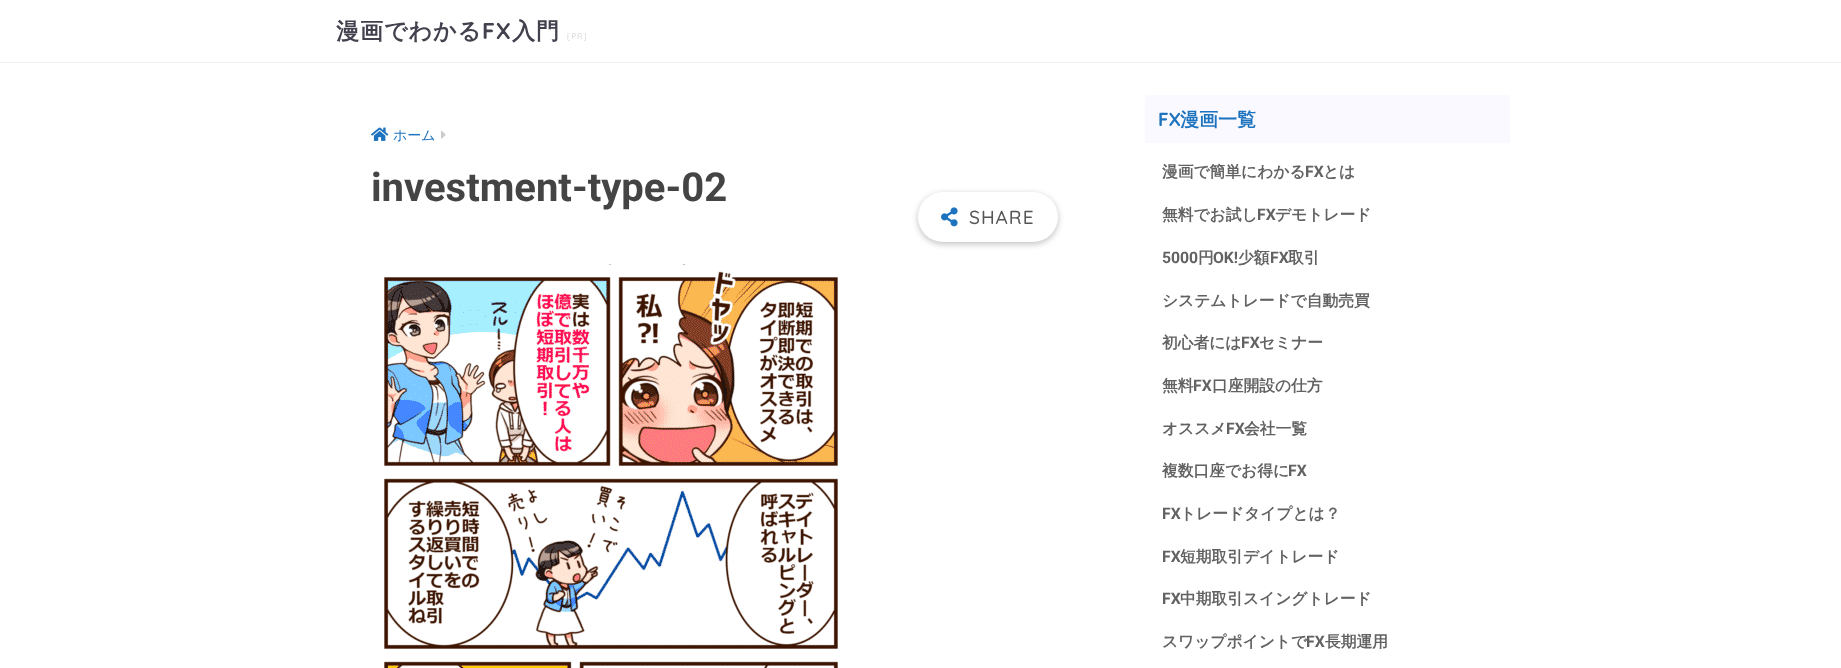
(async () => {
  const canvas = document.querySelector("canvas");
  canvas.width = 1841;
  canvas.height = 668;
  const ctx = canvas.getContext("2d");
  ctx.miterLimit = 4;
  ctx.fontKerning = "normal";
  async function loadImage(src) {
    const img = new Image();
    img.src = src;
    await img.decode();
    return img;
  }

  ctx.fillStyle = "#ffffff";
  ctx.fillRect(0, 0, 1841, 668);
  ctx.fillStyle = "#eeeeee";
  ctx.fillRect(0, 62, 1841, 1);
  ctx.drawImage(await loadImage("img/1.png"), 371, 127, 18, 14);
  ctx.drawImage(await loadImage("img/2.png"), 441, 130, 5, 9);
  ctx.fillStyle = "rgba(0, 0, 0, 0.25)";
  ctx.filter = "blur(3px)";
  ctx.beginPath();
  ctx.roundRect(918, 194, 140, 50, 25);
  ctx.fill();
  ctx.filter = "none";
  ctx.fillStyle = "#ffffff";
  ctx.beginPath();
  ctx.roundRect(918, 192, 140, 50, 25);
  ctx.fill();
  ctx.drawImage(await loadImage("img/3.png"), 941, 207, 17, 20);
  ctx.drawImage(await loadImage("img/4.png"), 384, 264, 454, 404);
  ctx.fillStyle = "#f9f9ff";
  ctx.beginPath();
  ctx.roundRect(1145, 95, 365, 48, [4, 4, 0, 0]);
  ctx.fill();
  ctx.letterSpacing = "1px";
  ctx.font = "bold 23px WenQuanYi Zen Hei";
  ctx.fillStyle = "#43414e";
  ctx.fillText("漫画でわかる", 336, 39);
  ctx.font = "bold 23px Quicksand";
  ctx.fillText("FX", 482, 39);
  ctx.font = "bold 23px WenQuanYi Zen Hei";
  ctx.fillText("入門", 512, 39);
  ctx.font = "8px Quicksand";
  ctx.fillStyle = "#cccccc";
  ctx.fillText("[PR]", 567, 39);
  ctx.letterSpacing = "0px";
  ctx.font = "500 14px WenQuanYi Zen Hei";
  ctx.fillStyle = "#1e73be";
  ctx.fillText("ホーム", 393, 140);
  ctx.font = "bold 40px Roboto";
  ctx.fillStyle = "#444444";
  ctx.fillText("investment-type-02", 371, 201);
  ctx.letterSpacing = "1px";
  ctx.font = "500 19px Quicksand";
  ctx.fillStyle = "#555555";
  ctx.fillText("SHARE", 969, 224);
  ctx.letterSpacing = "0px";
  ctx.font = "bold 19px Quicksand";
  ctx.fillStyle = "#1e73be";
  ctx.fillText("FX", 1158, 126);
  ctx.font = "bold 19px WenQuanYi Zen Hei";
  ctx.fillText("漫画一覧", 1180, 126);
  ctx.font = "bold 15.75px WenQuanYi Zen Hei";
  ctx.fillStyle = "#626262";
  ctx.fillText("漫画で簡単にわかる", 1162, 177);
  ctx.font = "bold 15.75px Roboto";
  ctx.fillText("FX", 1305, 177);
  ctx.font = "bold 15.75px WenQuanYi Zen Hei";
  ctx.fillText("とは", 1323, 177);
  ctx.fillText("無料でお試し", 1162, 220);
  ctx.font = "bold 15.75px Roboto";
  ctx.fillText("FX", 1257, 220);
  ctx.font = "bold 15.75px WenQuanYi Zen Hei";
  ctx.fillText("デモトレード", 1275, 220);
  ctx.font = "bold 15.75px Roboto";
  ctx.fillText("5000", 1162, 263);
  ctx.font = "bold 15.75px WenQuanYi Zen Hei";
  ctx.fillText("円", 1198, 263);
  ctx.font = "bold 15.75px Roboto";
  ctx.fillText("OK!", 1213, 263);
  ctx.font = "bold 15.75px WenQuanYi Zen Hei";
  ctx.fillText("少額", 1238, 263);
  ctx.font = "bold 15.75px Roboto";
  ctx.fillText("FX", 1270, 263);
  ctx.font = "bold 15.75px WenQuanYi Zen Hei";
  for (const [text, x, y] of [
    ["取引", 1288, 263],
    ["システムトレードで自動売買", 1162, 306],
    ["初心者には", 1162, 348],
  ]) {
    ctx.fillText(text, x, y);
  }
  ctx.font = "bold 15.75px Roboto";
  ctx.fillText("FX", 1241, 348);
  ctx.font = "bold 15.75px WenQuanYi Zen Hei";
  ctx.fillText("セミナー", 1259, 348);
  ctx.fillText("無料", 1162, 391);
  ctx.font = "bold 15.75px Roboto";
  ctx.fillText("FX", 1193, 391);
  ctx.font = "bold 15.75px WenQuanYi Zen Hei";
  ctx.fillText("口座開設の仕方", 1212, 391);
  ctx.fillText("オススメ", 1162, 434);
  ctx.font = "bold 15.75px Roboto";
  ctx.fillText("FX", 1226, 434);
  ctx.font = "bold 15.75px WenQuanYi Zen Hei";
  ctx.fillText("会社一覧", 1244, 434);
  ctx.fillText("複数口座でお得に", 1162, 476);
  ctx.font = "bold 15.75px Roboto";
  ctx.fillText("FX", 1288, 476);
  ctx.fillText("FX", 1162, 519);
  ctx.font = "bold 15.75px WenQuanYi Zen Hei";
  ctx.fillText("トレードタイプとは？", 1180, 519);
  ctx.font = "bold 15.75px Roboto";
  ctx.fillText("FX", 1162, 562);
  ctx.font = "bold 15.75px WenQuanYi Zen Hei";
  ctx.fillText("短期取引デイトレード", 1180, 562);
  ctx.font = "bold 15.75px Roboto";
  ctx.fillText("FX", 1162, 604);
  ctx.font = "bold 15.75px WenQuanYi Zen Hei";
  ctx.fillText("中期取引スイングトレード", 1180, 604);
  ctx.fillText("スワップポイントで", 1162, 647);
  ctx.font = "bold 15.75px Roboto";
  ctx.fillText("FX", 1306, 647);
  ctx.font = "bold 15.75px WenQuanYi Zen Hei";
  ctx.fillText("長期運用", 1325, 647);
})();
